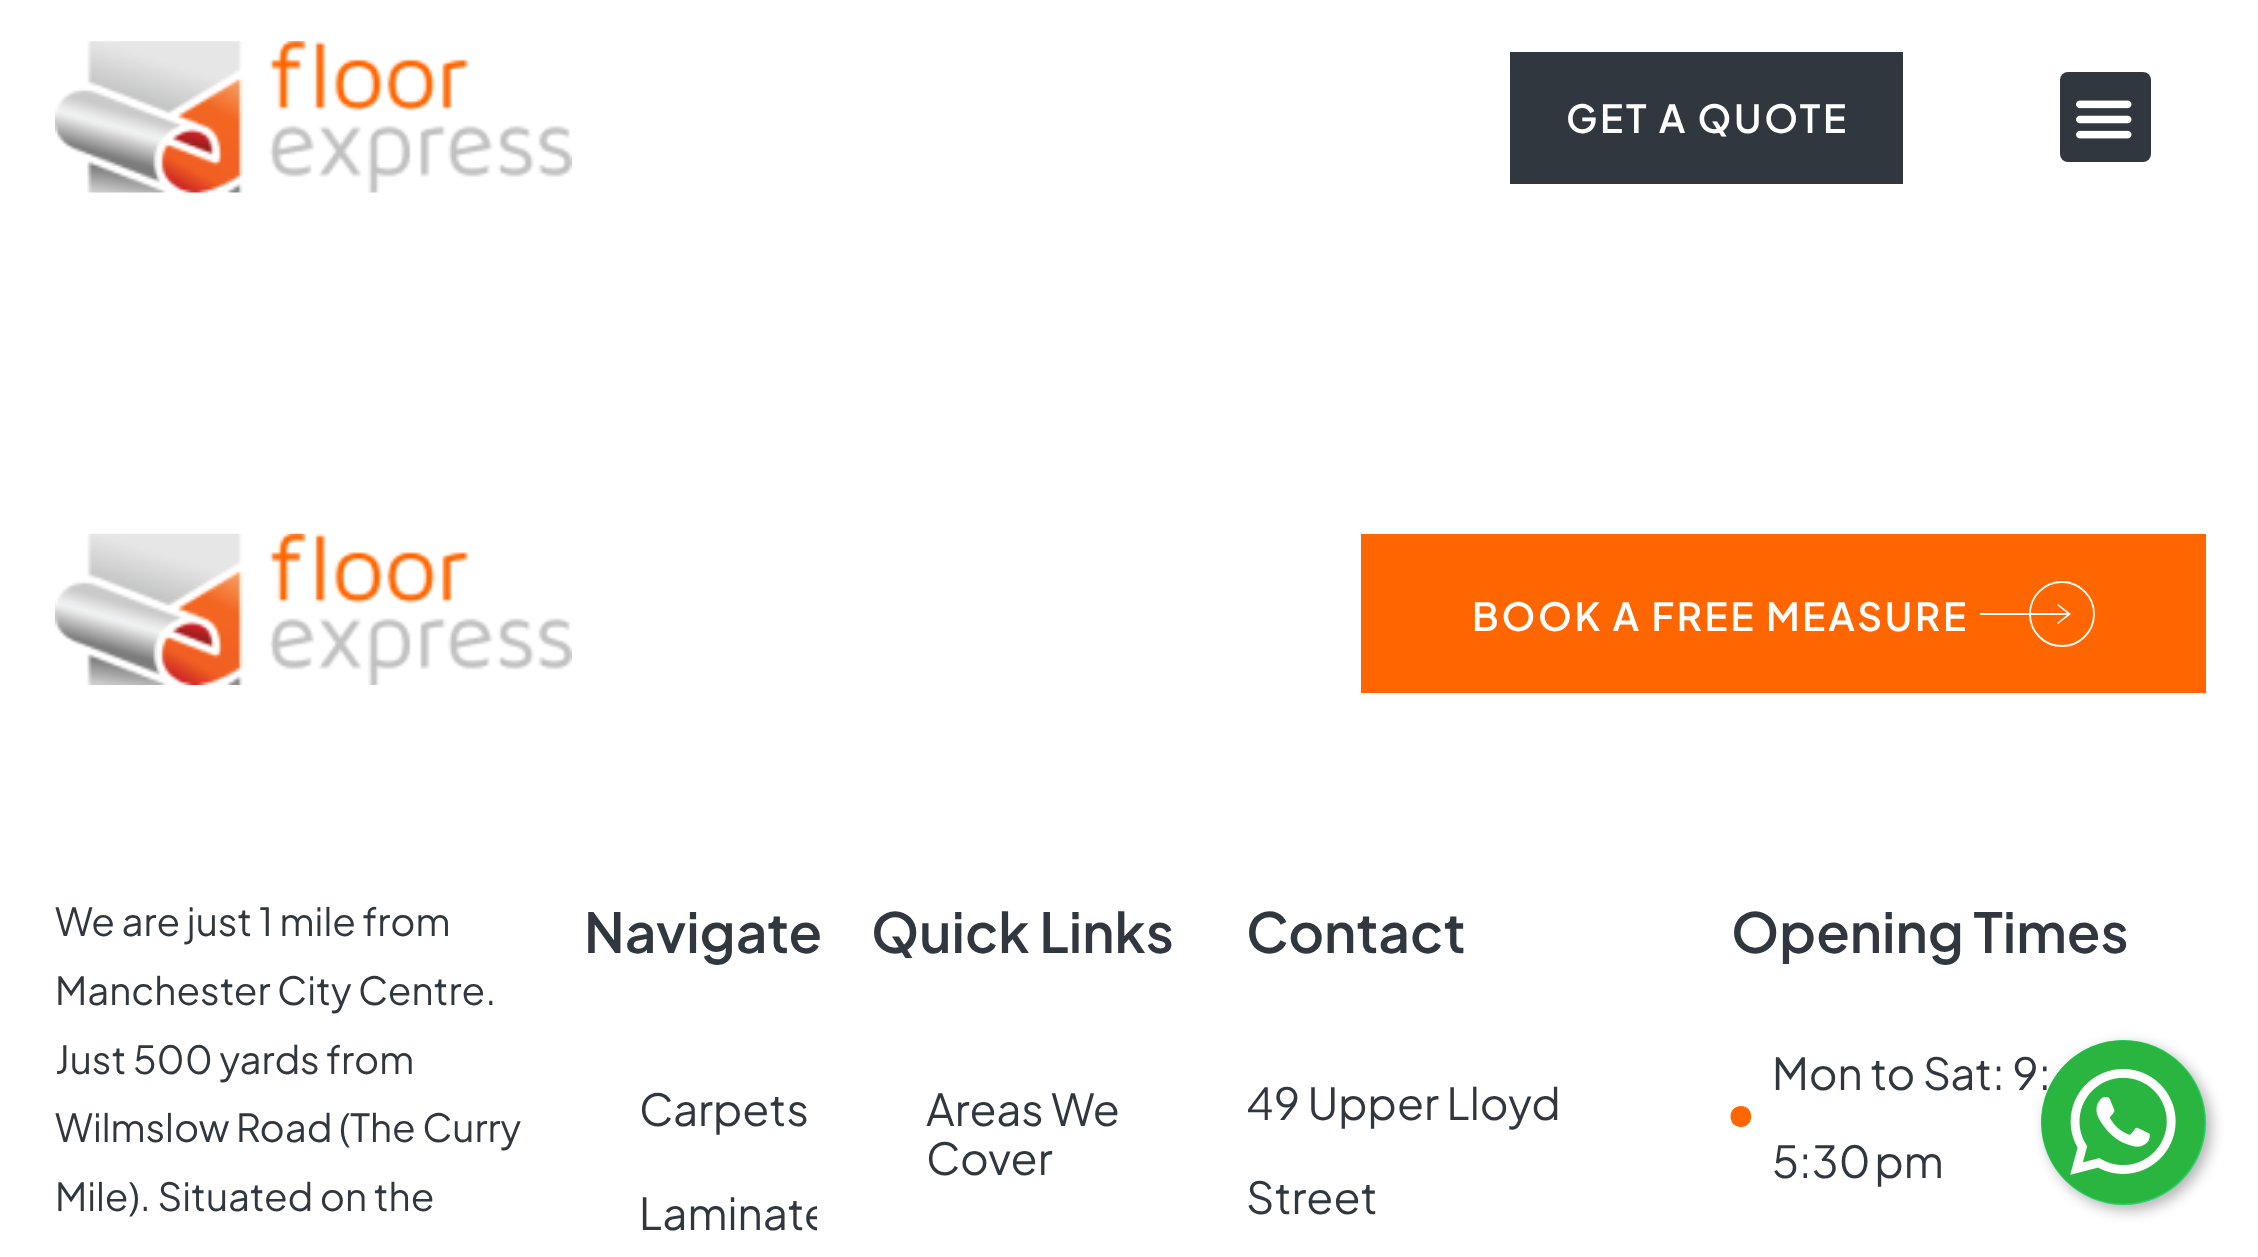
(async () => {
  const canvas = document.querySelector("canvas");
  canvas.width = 2258;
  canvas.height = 1257;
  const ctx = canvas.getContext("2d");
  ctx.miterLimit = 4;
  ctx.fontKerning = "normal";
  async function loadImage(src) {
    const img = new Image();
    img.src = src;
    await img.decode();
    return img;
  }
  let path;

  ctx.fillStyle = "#ffffff";
  ctx.fillRect(0, 0, 2258, 1257);
  ctx.drawImage(await loadImage("img/1.png"), 55, 41, 517, 152);
  ctx.fillStyle = "#30373f";
  ctx.fillRect(1510, 52, 393, 132);
  ctx.beginPath();
  ctx.roundRect(2060, 72, 91, 90, 8);
  ctx.fill();
  ctx.drawImage(await loadImage("img/2.png"), 2076, 100, 56, 39);
  ctx.drawImage(await loadImage("img/3.png"), 55, 533, 517, 152);
  ctx.fillStyle = "#ff6600";
  ctx.fillRect(1361, 534, 845, 159);
  path = new Path2D("M2062 646C2079.5 646 2094 632 2094 614C2094 596.5 2079.5 582 2062 582C2044 582 2030 596.5 2030 614C2030 632 2044 646 2062 646Z");
  ctx.strokeStyle = "#ffffff";
  ctx.lineWidth = 1.8;
  ctx.stroke(path);
  ctx.fillStyle = "#ffffff";
  path = new Path2D("M2058 604L2057 605L2067 613H1980V615H2067L2057 623L2058 624L2071 614Z");
  ctx.fill(path);
  ctx.fillStyle = "#ff6600";
  path = new Path2D("M1741 1106C1727 1106 1727 1127 1741 1127C1754.5 1127 1754.5 1106 1741 1106Z");
  ctx.fill(path);
  ctx.fillStyle = "rgba(0, 0, 0, 0.3)";
  ctx.filter = "blur(7px)";
  ctx.beginPath();
  ctx.roundRect(2046, 1045, 165, 165, 82.5);
  ctx.fill();
  ctx.filter = "none";
  ctx.letterSpacing = "2.75px";
  ctx.font = "600 38.5px Plus Jakarta Sans";
  ctx.fillStyle = "#ffffff";
  ctx.fillText("GET A QUOTE", 1566, 133);
  ctx.fillText("BOOK A FREE MEASURE", 1472, 631);
  ctx.letterSpacing = "0px";
  ctx.font = "38.5px Plus Jakarta Sans";
  ctx.fillStyle = "#30373f";
  for (const [text, x, y] of [
    ["We are just 1 mile from", 55, 936],
    ["Manchester City Centre.", 55, 1005],
    ["Just 500 yards from", 55, 1074],
    ["Wilmslow Road (The Curry", 55, 1142],
    ["Mile). Situated on the", 55, 1211],
  ]) {
    ctx.fillText(text, x, y);
  }
  ctx.font = "600 55px Plus Jakarta Sans";
  ctx.fillText("Navigate", 584, 953);
  ctx.font = "44px Plus Jakarta Sans";
  ctx.fillText("Carpets", 639, 1126);
  ctx.save();
  ctx.beginPath();
  ctx.rect(583, 1056, 234, 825);
  ctx.clip();
  ctx.fillText("Laminate", 639, 1230);
  ctx.restore();
  ctx.font = "600 55px Plus Jakarta Sans";
  ctx.fillText("Quick Links", 871, 953);
  ctx.font = "44px Plus Jakarta Sans";
  ctx.fillText("Areas We", 926, 1126);
  ctx.fillText("Cover", 926, 1175);
  ctx.font = "600 55px Plus Jakarta Sans";
  ctx.fillText("Contact", 1246, 953);
  ctx.font = "44px Plus Jakarta Sans";
  ctx.fillText("49 Upper Lloyd", 1246, 1120);
  ctx.fillText("Street", 1246, 1214);
  ctx.font = "600 55px Plus Jakarta Sans";
  ctx.fillText("Opening Times", 1731, 953);
  ctx.font = "44px Plus Jakarta Sans";
  ctx.fillText("Mon to Sat: 9:", 1772, 1090);
  ctx.fillText("5:30 pm", 1772, 1178);
  ctx.fillStyle = "#25d366";
  ctx.beginPath();
  ctx.arc(2123.5, 1122.5, 82.5, 0, Math.PI * 2);
  ctx.fill();
  ctx.drawImage(await loadImage("img/4.png"), 2041, 1040, 164, 164);
})();
